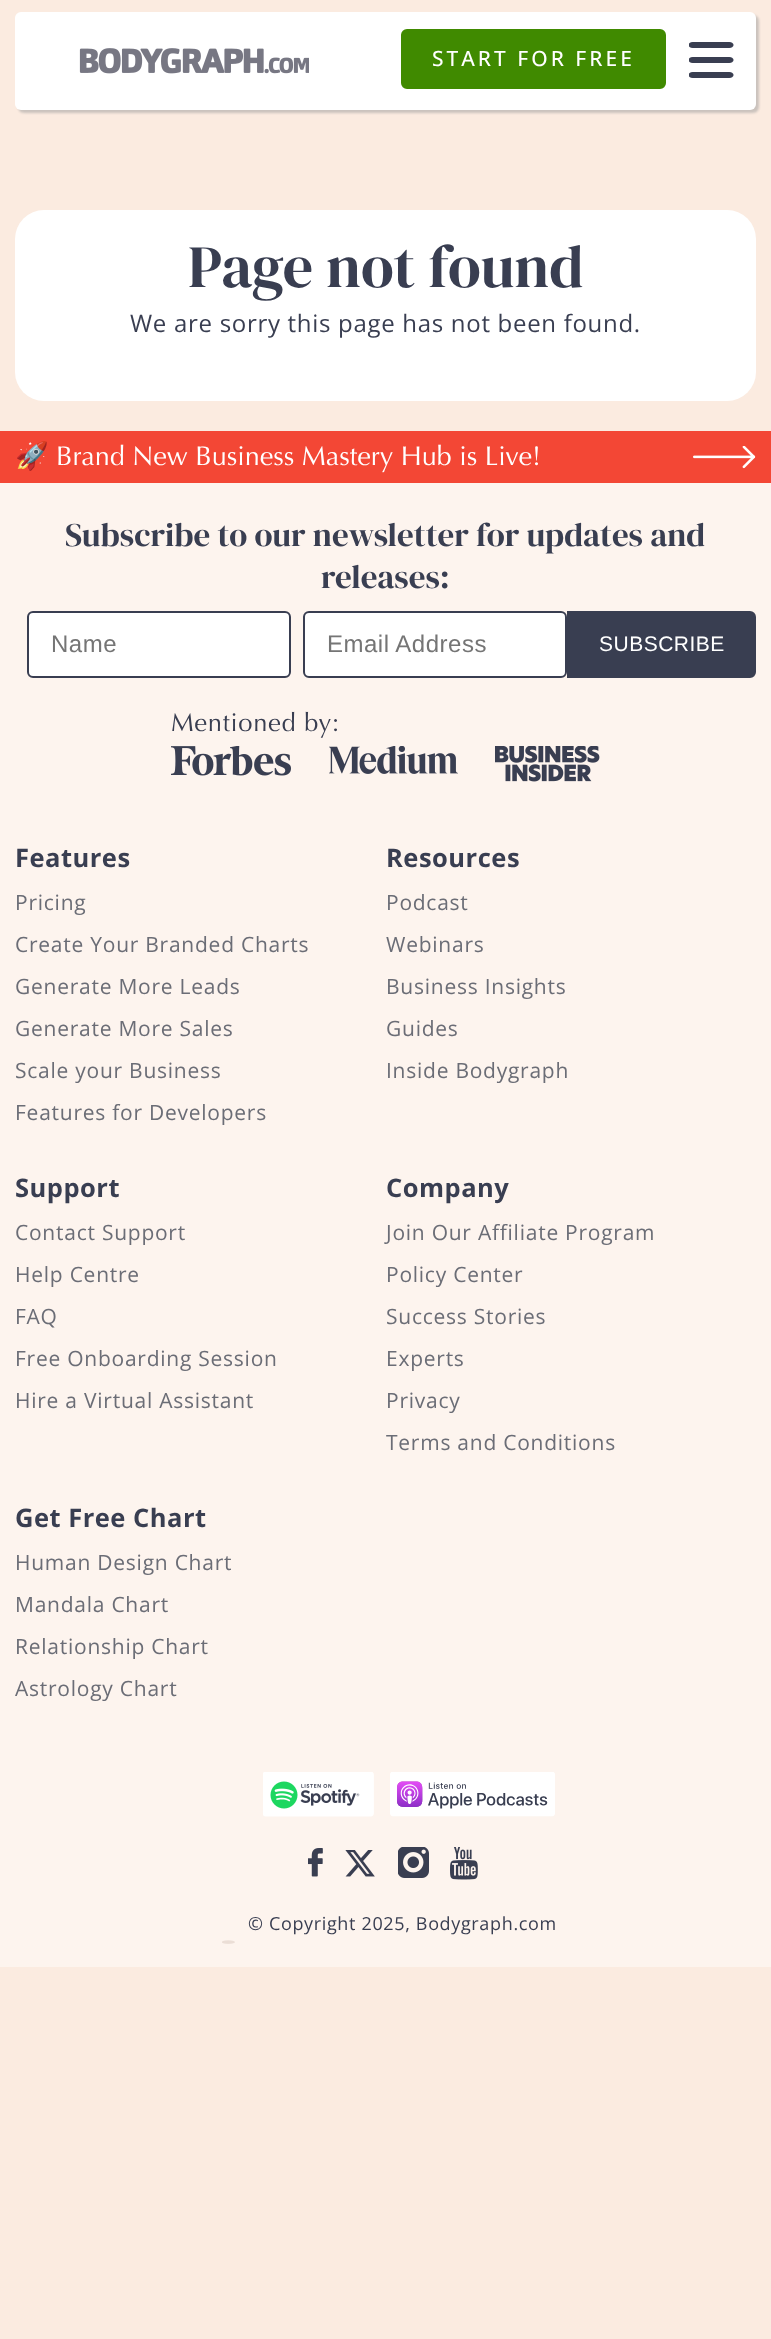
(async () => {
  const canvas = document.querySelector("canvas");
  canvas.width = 771;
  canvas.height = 2339;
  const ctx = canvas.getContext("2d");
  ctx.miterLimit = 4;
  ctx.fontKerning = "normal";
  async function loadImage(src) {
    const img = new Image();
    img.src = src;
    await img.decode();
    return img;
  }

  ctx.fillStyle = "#fbebe0";
  ctx.fillRect(0, 0, 771, 2339);
  ctx.fillStyle = "rgba(155, 155, 155, 0.5)";
  ctx.filter = "blur(1px)";
  ctx.beginPath();
  ctx.roundRect(18, 15, 741, 98, 6);
  ctx.fill();
  ctx.filter = "none";
  ctx.fillStyle = "#ffffff";
  ctx.beginPath();
  ctx.roundRect(15, 12, 741, 98, 6);
  ctx.fill();
  ctx.drawImage(await loadImage("img/1.png"), 79, 48, 230, 26);
  ctx.fillStyle = "#408a00";
  ctx.beginPath();
  ctx.roundRect(402, 30, 263, 58, 5);
  ctx.fill();
  ctx.strokeStyle = "#408a00";
  ctx.lineWidth = 2;
  ctx.stroke();
  ctx.drawImage(await loadImage("img/2.png"), 689, 42, 45, 36);
  ctx.fillStyle = "#ffffff";
  ctx.beginPath();
  ctx.roundRect(15, 210, 741, 191, 29);
  ctx.fill();
  ctx.fillStyle = "#f34735";
  ctx.fillRect(0, 431, 771, 52);
  ctx.drawImage(await loadImage("img/3.png"), 693, 446, 63, 23);
  ctx.fillStyle = "#fdf4ee";
  ctx.fillRect(0, 483, 771, 1484);
  ctx.fillStyle = "#ffffff";
  ctx.beginPath();
  ctx.roundRect(28, 612, 262, 65, 5);
  ctx.fill();
  ctx.strokeStyle = "#393e51";
  ctx.stroke();
  ctx.beginPath();
  ctx.roundRect(304, 612, 262, 65, 5);
  ctx.fill();
  ctx.stroke();
  ctx.fillStyle = "#393e51";
  ctx.beginPath();
  ctx.roundRect(568, 612, 187, 65, [0, 5, 5, 0]);
  ctx.fill();
  ctx.stroke();
  ctx.drawImage(await loadImage("img/4.png"), 171, 746, 120, 30);
  ctx.drawImage(await loadImage("img/5.png"), 329, 746, 129, 28);
  ctx.drawImage(await loadImage("img/6.png"), 495, 746, 105, 36);
  ctx.drawImage(await loadImage("img/7.png"), 263, 1772, 111, 45);
  ctx.drawImage(await loadImage("img/8.png"), 390, 1772, 165, 45);
  ctx.drawImage(await loadImage("img/9.png"), 308, 1848, 15, 29);
  ctx.drawImage(await loadImage("img/10.png"), 345, 1850, 30, 27);
  ctx.drawImage(await loadImage("img/11.png"), 398, 1847, 31, 31);
  ctx.drawImage(await loadImage("img/12.png"), 450, 1847, 28, 33);
  ctx.drawImage(await loadImage("img/13.png"), 222, 1940, 13, 4);
  ctx.letterSpacing = "3px";
  ctx.font = "500 21px Open Sans";
  ctx.fillStyle = "#ffffff";
  ctx.fillText("START FOR FREE", 432, 66);
  ctx.letterSpacing = "0px";
  ctx.font = "60px DM Serif Display";
  ctx.fillStyle = "#393e51";
  ctx.fillText("Page not found", 188, 287);
  ctx.letterSpacing = "0.7px";
  ctx.font = "24px Open Sans";
  ctx.fillText("We are sorry this page has not been found.", 130, 332);
  ctx.letterSpacing = "0px";
  ctx.font = "27px Noto Color Emoji";
  ctx.fillStyle = "#ffffff";
  ctx.fillText("🚀", 15, 465);
  ctx.font = "27px Optima";
  ctx.fillText("Brand New Business Mastery Hub is Live!", 56, 465);
  ctx.font = "33px DM Serif Display";
  ctx.fillStyle = "#393e51";
  ctx.fillText("Subscribe to our newsletter for updates and", 65, 546);
  ctx.fillText("releases:", 321, 588);
  ctx.letterSpacing = "0.5px";
  ctx.font = "24px Liberation Sans";
  ctx.fillStyle = "#757575";
  ctx.fillText("Name", 51, 652);
  ctx.fillText("Email Address", 327, 652);
  ctx.font = "21px Liberation Sans";
  ctx.fillStyle = "#ffffff";
  ctx.fillText("SUBSCRIBE", 599, 651);
  ctx.letterSpacing = "0.7px";
  ctx.font = "25.5px Optima";
  ctx.fillStyle = "#393e51";
  ctx.fillText("Mentioned by:", 171, 731);
  ctx.letterSpacing = "0.5px";
  ctx.font = "bold 25.5px Open Sans";
  ctx.fillText("Features", 15, 867);
  ctx.letterSpacing = "0.75px";
  ctx.font = "21px Open Sans";
  ctx.fillStyle = "#6b6d76";
  for (const [text, x, y] of [
    ["Pricing", 15, 910],
    ["Create Your Branded Charts", 15, 952],
    ["Generate More Leads", 15, 994],
    ["Generate More Sales", 15, 1036],
    ["Scale your Business", 15, 1078],
    ["Features for Developers", 15, 1120],
  ]) {
    ctx.fillText(text, x, y);
  }
  ctx.letterSpacing = "0.5px";
  ctx.font = "bold 25.5px Open Sans";
  ctx.fillStyle = "#393e51";
  ctx.fillText("Resources", 386, 867);
  ctx.letterSpacing = "0.75px";
  ctx.font = "21px Open Sans";
  ctx.fillStyle = "#6b6d76";
  for (const [text, x, y] of [
    ["Podcast", 386, 910],
    ["Webinars", 386, 952],
    ["Business Insights", 386, 994],
    ["Guides", 386, 1036],
    ["Inside Bodygraph", 386, 1078],
  ]) {
    ctx.fillText(text, x, y);
  }
  ctx.letterSpacing = "0.5px";
  ctx.font = "bold 25.5px Open Sans";
  ctx.fillStyle = "#393e51";
  ctx.fillText("Support", 15, 1197);
  ctx.letterSpacing = "0.75px";
  ctx.font = "21px Open Sans";
  ctx.fillStyle = "#6b6d76";
  for (const [text, x, y] of [
    ["Contact Support", 15, 1240],
    ["Help Centre", 15, 1282],
    ["FAQ", 15, 1324],
    ["Free Onboarding Session", 15, 1366],
    ["Hire a Virtual Assistant", 15, 1408],
  ]) {
    ctx.fillText(text, x, y);
  }
  ctx.letterSpacing = "0.5px";
  ctx.font = "bold 25.5px Open Sans";
  ctx.fillStyle = "#393e51";
  ctx.fillText("Company", 386, 1197);
  ctx.letterSpacing = "0.75px";
  ctx.font = "21px Open Sans";
  ctx.fillStyle = "#6b6d76";
  for (const [text, x, y] of [
    ["Join Our Affiliate Program", 386, 1240],
    ["Policy Center", 386, 1282],
    ["Success Stories", 386, 1324],
    ["Experts", 386, 1366],
    ["Privacy", 386, 1408],
    ["Terms and Conditions", 386, 1450],
  ]) {
    ctx.fillText(text, x, y);
  }
  ctx.letterSpacing = "0.5px";
  ctx.font = "bold 25.5px Open Sans";
  ctx.fillStyle = "#393e51";
  ctx.fillText("Get Free Chart", 15, 1527);
  ctx.letterSpacing = "0.75px";
  ctx.font = "21px Open Sans";
  ctx.fillStyle = "#6b6d76";
  for (const [text, x, y] of [
    ["Human Design Chart", 15, 1570],
    ["Mandala Chart", 15, 1612],
    ["Relationship Chart", 15, 1654],
    ["Astrology Chart", 15, 1696],
  ]) {
    ctx.fillText(text, x, y);
  }
  ctx.letterSpacing = "0.65px";
  ctx.font = "18px Open Sans";
  ctx.fillStyle = "#393e51";
  ctx.fillText("© Copyright 2025, Bodygraph.com", 248, 1930);
})();
